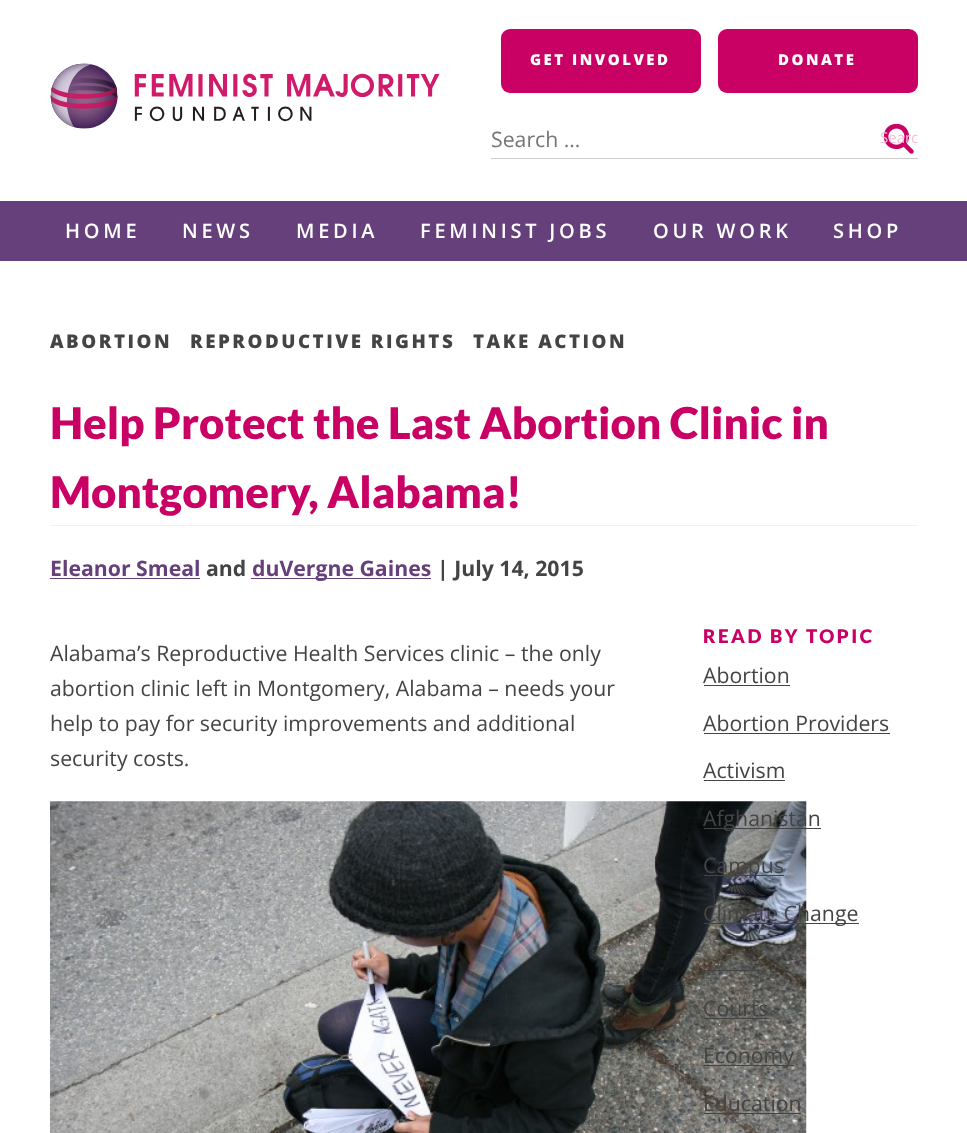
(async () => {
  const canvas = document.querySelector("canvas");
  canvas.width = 967;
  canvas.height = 1133;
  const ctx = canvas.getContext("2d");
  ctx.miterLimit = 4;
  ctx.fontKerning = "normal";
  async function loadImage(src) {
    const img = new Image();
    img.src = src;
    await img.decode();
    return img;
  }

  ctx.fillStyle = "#ffffff";
  ctx.fillRect(0, 0, 967, 1133);
  ctx.drawImage(await loadImage("img/1.png"), 50, 63, 390, 66);
  ctx.fillStyle = "#ca0164";
  ctx.beginPath();
  ctx.roundRect(501, 29, 200, 64, 9);
  ctx.fill();
  ctx.beginPath();
  ctx.roundRect(718, 29, 200, 64, 9);
  ctx.fill();
  ctx.fillStyle = "#cccccc";
  ctx.fillRect(491, 158, 427, 1);
  ctx.drawImage(await loadImage("img/2.png"), 884, 124, 30, 30);
  for (const [x, y, w, h, color] of [
    [0, 201, 967, 60, "#65407a"],
    [50, 525, 868, 1, "#f0f0f0"],
    [50, 578, 150, 1, "#65407a"],
    [251, 578, 180, 1, "#65407a"],
  ]) {
    ctx.fillStyle = color;
    ctx.fillRect(x, y, w, h);
  }
  ctx.drawImage(await loadImage("img/3.png"), 50, 801, 757, 332);
  for (const [x, y, w, h, color] of [
    [704, 685, 86, 1, "#444444"],
    [704, 733, 186, 1, "#444444"],
    [704, 780, 81, 1, "#444444"],
    [704, 828, 117, 1, "#444444"],
    [704, 875, 80, 1, "#444444"],
    [704, 923, 155, 1, "#444444"],
    [704, 970, 62, 1, "#444444"],
    [704, 1018, 65, 1, "#444444"],
    [704, 1065, 90, 1, "#444444"],
    [704, 1113, 97, 1, "#444444"],
  ]) {
    ctx.fillStyle = color;
    ctx.fillRect(x, y, w, h);
  }
  ctx.letterSpacing = "2.5px";
  ctx.font = "800 15px Open Sans";
  ctx.fillStyle = "#ffffff";
  ctx.fillText("GET INVOLVED", 530, 65);
  ctx.fillText("DONATE", 778, 65);
  ctx.letterSpacing = "0px";
  ctx.font = "21.25px Open Sans";
  ctx.fillStyle = "#757575";
  ctx.fillText("Search …", 491, 147);
  ctx.font = "15px Open Sans";
  ctx.fillStyle = "#f2c1d9";
  ctx.fillText("Searc", 880, 143);
  ctx.letterSpacing = "3.75px";
  ctx.font = "600 20px Open Sans";
  ctx.fillStyle = "#ffffff";
  for (const [text, x, y] of [
    ["HOME", 65, 238],
    ["NEWS", 182, 238],
    ["MEDIA", 296, 238],
    ["FEMINIST JOBS", 420, 238],
    ["OUR WORK", 653, 238],
    ["SHOP", 833, 238],
  ]) {
    ctx.fillText(text, x, y);
  }
  ctx.letterSpacing = "2.5px";
  ctx.font = "800 18.75px Open Sans";
  ctx.fillStyle = "#444444";
  for (const [text, x, y] of [
    ["ABORTION", 50, 348],
    ["REPRODUCTIVE RIGHTS", 190, 348],
    ["TAKE ACTION", 473, 348],
  ]) {
    ctx.fillText(text, x, y);
  }
  ctx.letterSpacing = "0px";
  ctx.font = "900 43.75px Lato";
  ctx.fillStyle = "#ca0164";
  ctx.fillText("Help Protect the Last Abortion Clinic in", 50, 439);
  ctx.fillText("Montgomery, Alabama!", 50, 508);
  ctx.font = "bold 21.25px Open Sans";
  ctx.fillStyle = "#65407a";
  ctx.fillText("Eleanor Smeal", 50, 576);
  ctx.fillStyle = "#444444";
  ctx.fillText("and", 206, 576);
  ctx.fillStyle = "#65407a";
  ctx.fillText("duVergne Gaines", 252, 576);
  ctx.fillStyle = "#444444";
  ctx.fillText("| July 14, 2015", 437, 576);
  ctx.font = "21.25px Open Sans";
  for (const [text, x, y] of [
    ["Alabama’s Reproductive Health Services clinic – the only", 50, 661],
    ["abortion clinic left in Montgomery, Alabama – needs your", 50, 696],
    ["help to pay for security improvements and additional", 50, 731],
    ["security costs.", 50, 766],
  ]) {
    ctx.fillText(text, x, y);
  }
  ctx.letterSpacing = "2.5px";
  ctx.font = "900 18.75px Lato";
  ctx.fillStyle = "#ca0164";
  ctx.fillText("READ BY TOPIC", 703, 643);
  ctx.letterSpacing = "0px";
  ctx.font = "21.25px Open Sans";
  ctx.fillStyle = "#444444";
  for (const [text, x, y] of [
    ["Abortion", 703, 683],
    ["Abortion Providers", 703, 731],
    ["Activism", 703, 778],
    ["Afghanistan", 703, 826],
    ["Campus", 703, 873],
    ["Climate Change", 703, 921],
    ["Courts", 703, 1016],
    ["Economy", 703, 1063],
    ["Education", 703, 1111],
  ]) {
    ctx.fillText(text, x, y);
  }
})();
